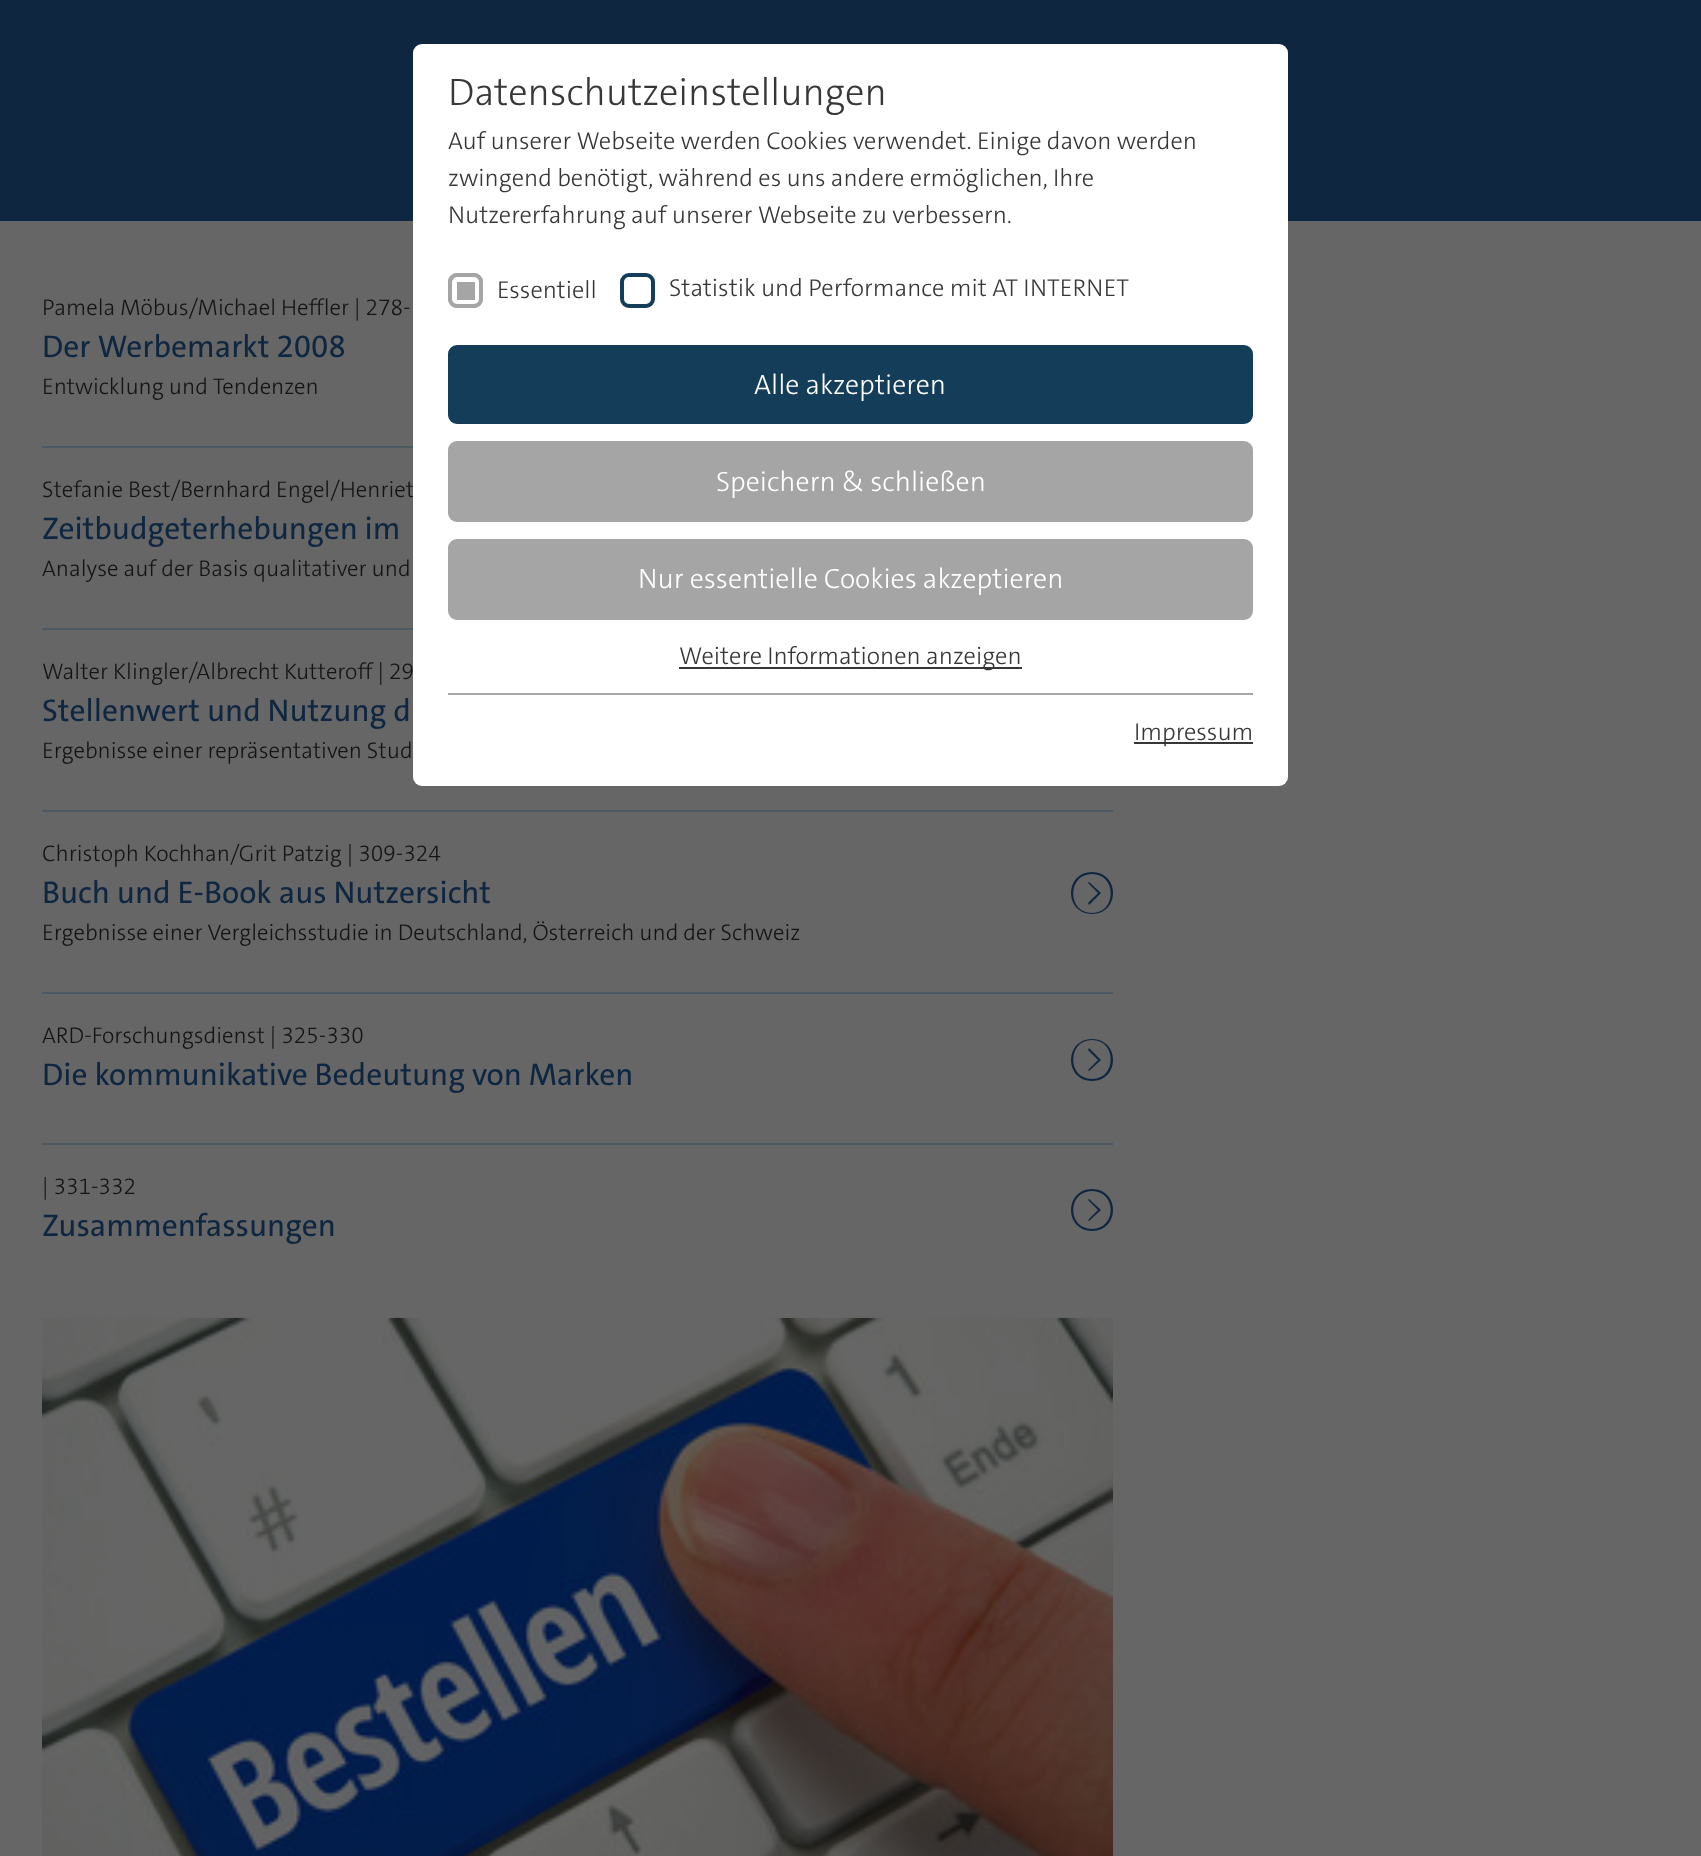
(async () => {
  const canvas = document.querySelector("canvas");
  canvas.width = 1701;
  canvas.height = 1856;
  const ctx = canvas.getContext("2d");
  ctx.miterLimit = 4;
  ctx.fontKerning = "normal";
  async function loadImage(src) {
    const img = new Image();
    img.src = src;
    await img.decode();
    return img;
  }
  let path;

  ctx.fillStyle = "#666666";
  ctx.fillRect(0, 0, 1701, 1856);
  for (const [x, y, w, h, color] of [
    [0, 0, 1701, 221, "#0e2640"],
    [42, 446, 371, 2, "#4c5864"],
    [42, 628, 371, 2, "#4c5864"],
    [42, 810, 1071, 2, "#4c5864"],
  ]) {
    ctx.fillStyle = color;
    ctx.fillRect(x, y, w, h);
  }
  ctx.fillStyle = "#0e2640";
  path = new Path2D("M1092 872C1064 872 1064 914 1092 914C1120 914 1120 872 1092 872ZM1092 913C1067 913 1067 874 1092 874C1117 874 1117 913 1092 913ZM1088 883L1098 893L1088 903L1089 905L1101 893L1089 882Z");
  ctx.fill(path);
  ctx.fillStyle = "#4c5864";
  ctx.fillRect(42, 992, 1071, 2);
  ctx.fillStyle = "#0e2640";
  path = new Path2D("M1092 1039C1064 1039 1064 1081 1092 1081C1120 1081 1120 1039 1092 1039ZM1092 1079C1067 1079 1067 1040 1092 1040C1117 1040 1117 1079 1092 1079ZM1088 1050L1098 1060L1088 1070L1089 1071L1101 1060L1089 1048Z");
  ctx.fill(path);
  ctx.fillStyle = "#4c5864";
  ctx.fillRect(42, 1143, 1071, 2);
  ctx.fillStyle = "#0e2640";
  path = new Path2D("M1092 1189C1064 1189 1064 1231 1092 1231C1120 1231 1120 1189 1092 1189ZM1092 1229C1067 1229 1067 1191 1092 1191C1117 1191 1117 1229 1092 1229ZM1088 1200L1098 1210L1088 1220L1089 1221L1101 1210L1089 1199Z");
  ctx.fill(path);
  ctx.drawImage(await loadImage("img/1.png"), 42, 1317, 1071, 539);
  ctx.font = "300 22.75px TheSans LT";
  ctx.fillStyle = "#141414";
  ctx.fillText("Pamela Möbus/Michael Heffler | 278-", 42, 315);
  ctx.font = "31.5px TheSans LT";
  ctx.fillStyle = "#0e2640";
  ctx.fillText("Der Werbemarkt 2008", 42, 357);
  ctx.font = "300 22.75px TheSans LT";
  ctx.fillStyle = "#141414";
  ctx.fillText("Entwicklung und Tendenzen", 42, 394);
  ctx.fillText("Stefanie Best/Bernhard Engel/Henriet", 42, 497);
  ctx.font = "31.5px TheSans LT";
  ctx.fillStyle = "#0e2640";
  ctx.fillText("Zeitbudgeterhebungen im", 42, 539);
  ctx.font = "300 22.75px TheSans LT";
  ctx.fillStyle = "#141414";
  ctx.fillText("Analyse auf der Basis qualitativer und", 42, 576);
  ctx.fillText("Walter Klingler/Albrecht Kutteroff | 29", 42, 679);
  ctx.font = "31.5px TheSans LT";
  ctx.fillStyle = "#0e2640";
  ctx.fillText("Stellenwert und Nutzung d", 42, 721);
  ctx.font = "300 22.75px TheSans LT";
  ctx.fillStyle = "#141414";
  ctx.fillText("Ergebnisse einer repräsentativen Stud", 42, 758);
  ctx.fillText("Christoph Kochhan/Grit Patzig | 309-324", 42, 861);
  ctx.font = "31.5px TheSans LT";
  ctx.fillStyle = "#0e2640";
  ctx.fillText("Buch und E-Book aus Nutzersicht", 42, 903);
  ctx.font = "300 22.75px TheSans LT";
  ctx.fillStyle = "#141414";
  ctx.fillText("Ergebnisse einer Vergleichsstudie in Deutschland, Österreich und der Schweiz", 42, 940);
  ctx.fillText("ARD-Forschungsdienst | 325-330", 42, 1043);
  ctx.font = "31.5px TheSans LT";
  ctx.fillStyle = "#0e2640";
  ctx.fillText("Die kommunikative Bedeutung von Marken", 42, 1085);
  ctx.font = "300 22.75px TheSans LT";
  ctx.fillStyle = "#141414";
  ctx.fillText("| 331-332", 42, 1194);
  ctx.font = "31.5px TheSans LT";
  ctx.fillStyle = "#0e2640";
  ctx.fillText("Zusammenfassungen", 42, 1236);
  ctx.fillStyle = "#ffffff";
  ctx.beginPath();
  ctx.roundRect(413, 44, 875, 742, 9);
  ctx.fill();
  ctx.font = "300 38.5px TheSans LT";
  ctx.fillStyle = "#373737";
  ctx.fillText("Datenschutzeinstellungen", 448, 105);
  ctx.font = "300 24.5px TheSans LT";
  for (const [text, x, y] of [
    ["Auf unserer Webseite werden Cookies verwendet. Einige davon werden", 448, 149],
    ["zwingend benötigt, während es uns andere ermöglichen, Ihre", 448, 186],
    ["Nutzererfahrung auf unserer Webseite zu verbessern.", 448, 223],
  ]) {
    ctx.fillText(text, x, y);
  }
  ctx.fillStyle = "#a5a5a5";
  ctx.beginPath();
  ctx.roundRect(448, 273, 35, 35, 9);
  ctx.fill();
  ctx.beginPath();
  ctx.roundRect(454.5, 279.5, 23, 23, 2.5);
  ctx.strokeStyle = "#ffffff";
  ctx.lineWidth = 5;
  ctx.stroke();
  ctx.beginPath();
  ctx.roundRect(450, 275, 31, 31, 7);
  ctx.strokeStyle = "#a5a5a5";
  ctx.lineWidth = 4;
  ctx.stroke();
  ctx.fillStyle = "#373737";
  ctx.fillText("Essentiell", 497, 298);
  ctx.beginPath();
  ctx.roundRect(622, 275, 31, 31, 7);
  ctx.strokeStyle = "#143d59";
  ctx.stroke();
  ctx.fillText("Statistik und Performance mit AT INTERNET", 669, 296);
  ctx.fillStyle = "#143d59";
  ctx.beginPath();
  ctx.roundRect(448, 345, 805, 79, 9);
  ctx.fill();
  ctx.font = "300 28px TheSans LT";
  ctx.fillStyle = "#ffffff";
  ctx.fillText("Alle akzeptieren", 754, 394);
  ctx.fillStyle = "#a5a5a5";
  ctx.beginPath();
  ctx.roundRect(448, 441, 805, 81, 9);
  ctx.fill();
  ctx.fillStyle = "#ffffff";
  ctx.fillText("Speichern & schließen", 716, 491);
  ctx.fillStyle = "#a5a5a5";
  ctx.beginPath();
  ctx.roundRect(448, 539, 805, 81, 9);
  ctx.fill();
  ctx.fillStyle = "#ffffff";
  ctx.fillText("Nur essentielle Cookies akzeptieren", 638, 588);
  ctx.fillStyle = "#373737";
  ctx.fillRect(679, 667, 343, 2);
  ctx.font = "300 24.5px TheSans LT";
  ctx.fillText("Weitere Informationen anzeigen", 679, 664);
  ctx.fillStyle = "#a5a5a5";
  ctx.fillRect(448, 693, 805, 2);
  ctx.fillStyle = "#373737";
  ctx.fillRect(1134, 742, 119, 2);
  ctx.fillText("Impressum", 1134, 740);
})();
